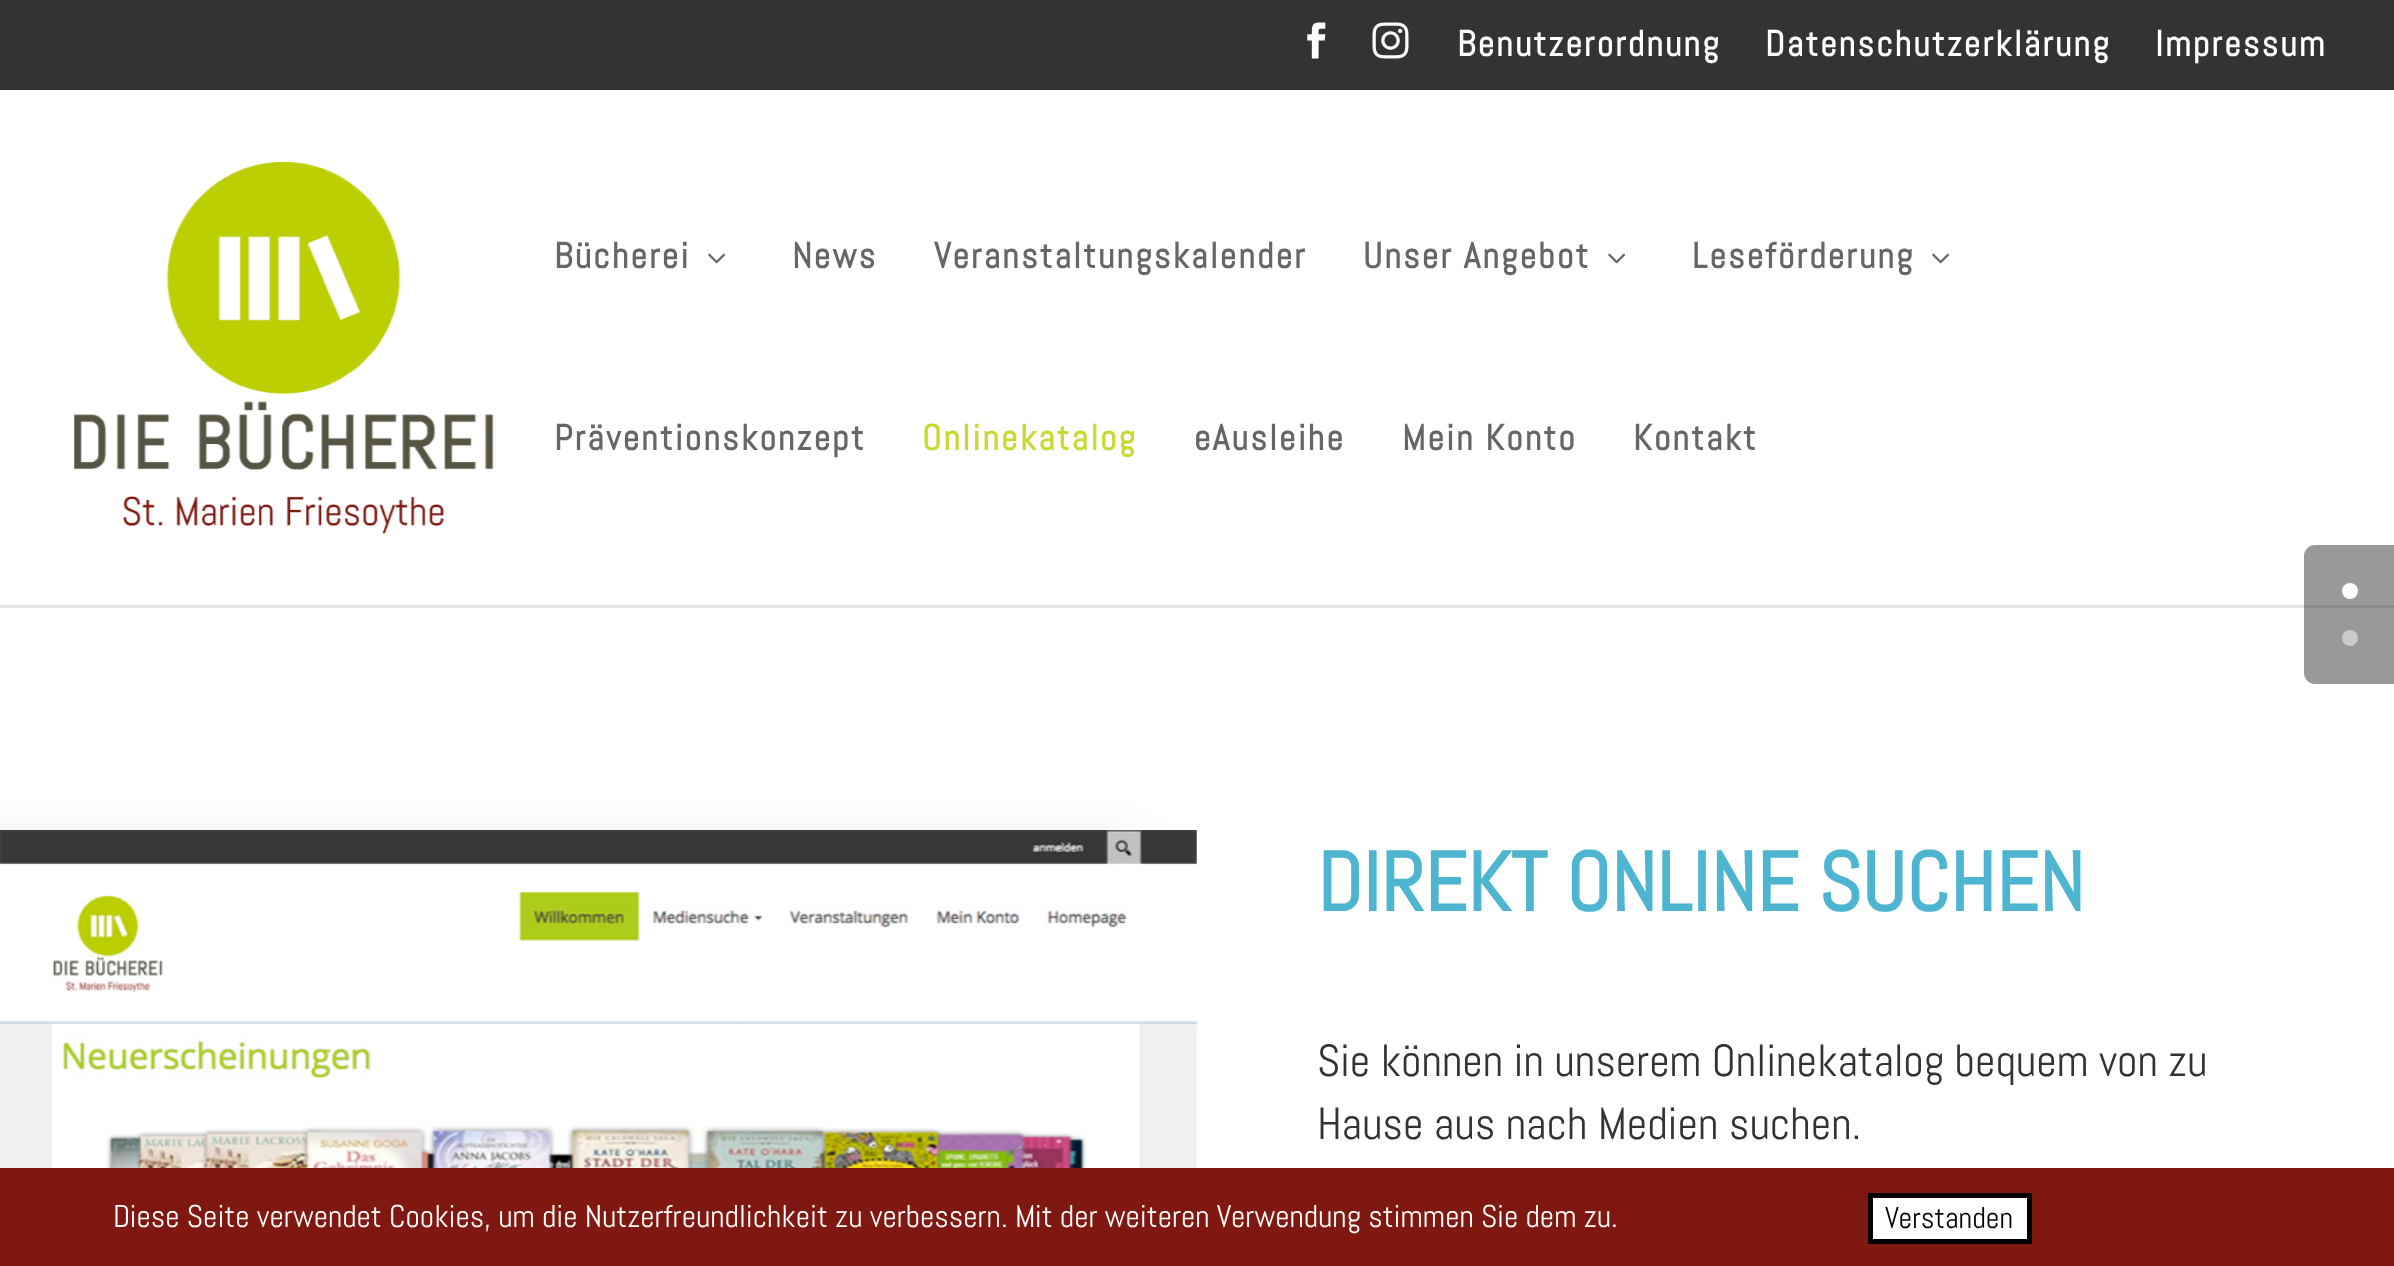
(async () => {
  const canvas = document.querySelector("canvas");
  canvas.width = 2394;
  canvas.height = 1266;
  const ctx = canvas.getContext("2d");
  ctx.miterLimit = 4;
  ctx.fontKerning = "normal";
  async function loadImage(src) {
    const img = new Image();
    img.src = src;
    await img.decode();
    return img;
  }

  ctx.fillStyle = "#ffffff";
  ctx.fillRect(0, 0, 2394, 1266);
  ctx.fillStyle = "#333333";
  ctx.fillRect(0, 0, 2394, 90);
  ctx.drawImage(await loadImage("img/1.png"), 1307, 22, 19, 37);
  ctx.drawImage(await loadImage("img/2.png"), 1372, 22, 37, 37);
  ctx.fillStyle = "#e6e6e6";
  ctx.fillRect(0, 605, 2394, 3);
  ctx.drawImage(await loadImage("img/3.png"), 74, 162, 420, 372);
  ctx.drawImage(await loadImage("img/4.png"), 708, 253, 17, 11);
  ctx.drawImage(await loadImage("img/4.png"), 1608, 253, 17, 11);
  ctx.drawImage(await loadImage("img/4.png"), 1932, 253, 17, 11);
  ctx.fillStyle = "rgba(0, 0, 0, 0.4)";
  ctx.beginPath();
  ctx.roundRect(2304, 545, 90, 139, [11, 0, 0, 11]);
  ctx.fill();
  ctx.fillStyle = "#ffffff";
  ctx.beginPath();
  ctx.arc(2350, 591, 8, 0, Math.PI * 2);
  ctx.fill();
  ctx.fillStyle = "#cccccc";
  ctx.beginPath();
  ctx.arc(2350, 638, 8, 0, Math.PI * 2);
  ctx.fill();
  ctx.fillStyle = "rgba(0, 0, 0, 0.3)";
  ctx.filter = "blur(31.5px)";
  ctx.beginPath();
  ctx.rect(-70, 864, 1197, 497);
  ctx.fill();
  ctx.filter = "none";
  ctx.drawImage(await loadImage("img/5.png"), 0, 830, 1197, 338);
  ctx.fillStyle = "#7e1810";
  ctx.fillRect(0, 1168, 2394, 98);
  ctx.fillStyle = "#ffffff";
  ctx.beginPath();
  ctx.rect(1870.5, 1195.5, 159, 46);
  ctx.fill();
  ctx.strokeStyle = "#000000";
  ctx.lineWidth = 5;
  ctx.stroke();
  ctx.letterSpacing = "2.25px";
  ctx.font = "bold 36px Abel";
  for (const [text, x, y] of [
    ["Benutzerordnung", 1457, 56],
    ["Datenschutzerklärung", 1765, 56],
    ["Impressum", 2155, 56],
  ]) {
    ctx.fillText(text, x, y);
  }
  ctx.fillStyle = "#666666";
  for (const [text, x, y] of [
    ["Bücherei", 554, 268],
    ["News", 792, 268],
    ["Veranstaltungskalender", 934, 268],
    ["Unser Angebot", 1363, 268],
    ["Leseförderung", 1692, 268],
    ["Präventionskonzept", 554, 450],
  ]) {
    ctx.fillText(text, x, y);
  }
  ctx.fillStyle = "#c9d933";
  ctx.fillText("Onlinekatalog", 922, 450);
  ctx.fillStyle = "#666666";
  for (const [text, x, y] of [
    ["eAusleihe", 1194, 450],
    ["Mein Konto", 1402, 450],
    ["Kontakt", 1633, 450],
  ]) {
    ctx.fillText(text, x, y);
  }
  ctx.letterSpacing = "0px";
  ctx.font = "bold 83.25px Abel";
  ctx.fillStyle = "#4db5d0";
  ctx.fillText("DIREKT ONLINE SUCHEN", 1317, 911);
  ctx.font = "45px Abel";
  ctx.fillStyle = "#333333";
  ctx.fillText("Sie können in unserem Onlinekatalog bequem von zu", 1317, 1076);
  ctx.fillText("Hause aus nach Medien suchen.", 1317, 1139);
  ctx.font = "31.5px Abel";
  ctx.fillStyle = "#ffffff";
  ctx.fillText("Diese Seite verwendet Cookies, um die Nutzerfreundlichkeit zu verbessern. Mit der weiteren Verwendung stimmen Sie dem zu.", 113, 1227);
  ctx.font = "30px Abel";
  ctx.fillStyle = "#000000";
  ctx.fillText("Verstanden", 1885, 1228);
})();
